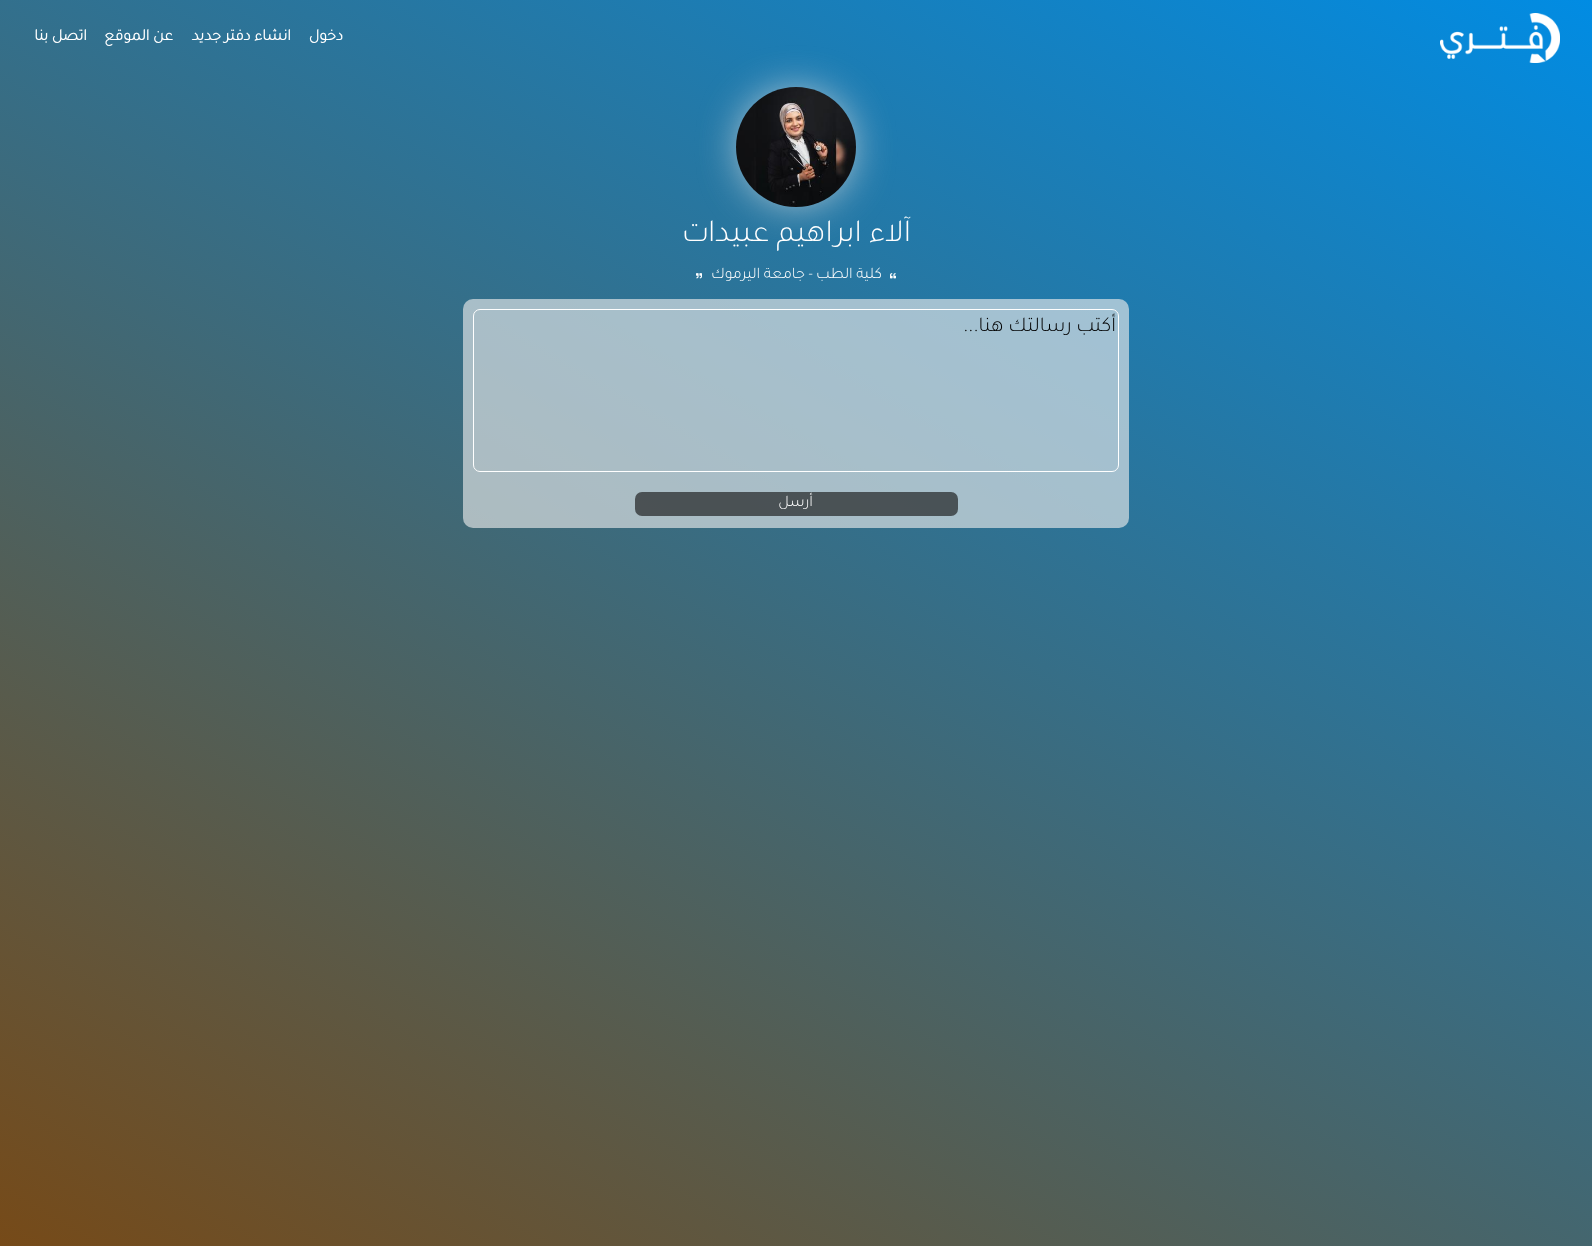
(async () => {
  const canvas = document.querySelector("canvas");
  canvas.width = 1592;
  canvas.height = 1246;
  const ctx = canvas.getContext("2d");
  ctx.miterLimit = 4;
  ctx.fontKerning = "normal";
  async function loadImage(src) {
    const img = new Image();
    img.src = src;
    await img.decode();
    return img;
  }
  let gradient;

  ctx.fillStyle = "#ffffff";
  ctx.fillRect(0, 0, 1592, 1246);
  gradient = ctx.createLinearGradient(1265, -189, 327, 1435);
  gradient.addColorStop(0, "#018ce3");
  gradient.addColorStop(1, "#764a18");
  ctx.fillStyle = gradient;
  ctx.fillRect(0, 0, 1592, 1246);
  ctx.drawImage(await loadImage("img/1.png"), 1440, 13, 120, 50);
  ctx.fillStyle = "#e1e1e1";
  ctx.filter = "blur(22px)";
  ctx.beginPath();
  ctx.roundRect(744, 95, 104, 104, 52);
  ctx.fill();
  ctx.filter = "none";
  ctx.drawImage(await loadImage("img/2.png"), 736, 87, 120, 120);
  ctx.drawImage(await loadImage("img/3.png"), 890, 273, 6, 6);
  ctx.drawImage(await loadImage("img/4.png"), 696, 273, 6, 6);
  ctx.fillStyle = "rgba(234, 234, 234, 0.64)";
  ctx.beginPath();
  ctx.roundRect(463, 299, 666, 229, 10);
  ctx.fill();
  ctx.beginPath();
  ctx.roundRect(473.5, 309.5, 645, 162, 6.5);
  ctx.strokeStyle = "#ffffff";
  ctx.stroke();
  ctx.fillStyle = "rgba(21, 21, 21, 0.64)";
  ctx.beginPath();
  ctx.roundRect(635, 492, 323, 24, 7);
  ctx.fill();
  ctx.direction = "rtl";
  ctx.font = "bold 16px Tajawal";
  ctx.fillStyle = "#ffffff";
  for (const [text, x, y] of [
    ["دخول", 343, 40],
    ["انشاء دفتر جديد", 291, 40],
    ["عن الموقع", 173, 40],
    ["اتصل بنا", 87, 40],
  ]) {
    ctx.fillText(text, x, y);
  }
  ctx.font = "300 32px Tajawal";
  ctx.fillText("آلاء ابراهيم عبيدات", 911, 241);
  ctx.font = "300 16px Tajawal";
  ctx.fillText("كلية الطب - جامعة اليرموك", 882, 278);
  ctx.font = "300 21px Tajawal";
  ctx.fillStyle = "#000000";
  ctx.fillText("أكتب رسالتك هنا...", 1116, 331);
  ctx.font = "300 16px Tajawal";
  ctx.fillStyle = "#ffffff";
  ctx.fillText("أرسل", 813, 506);
})();
